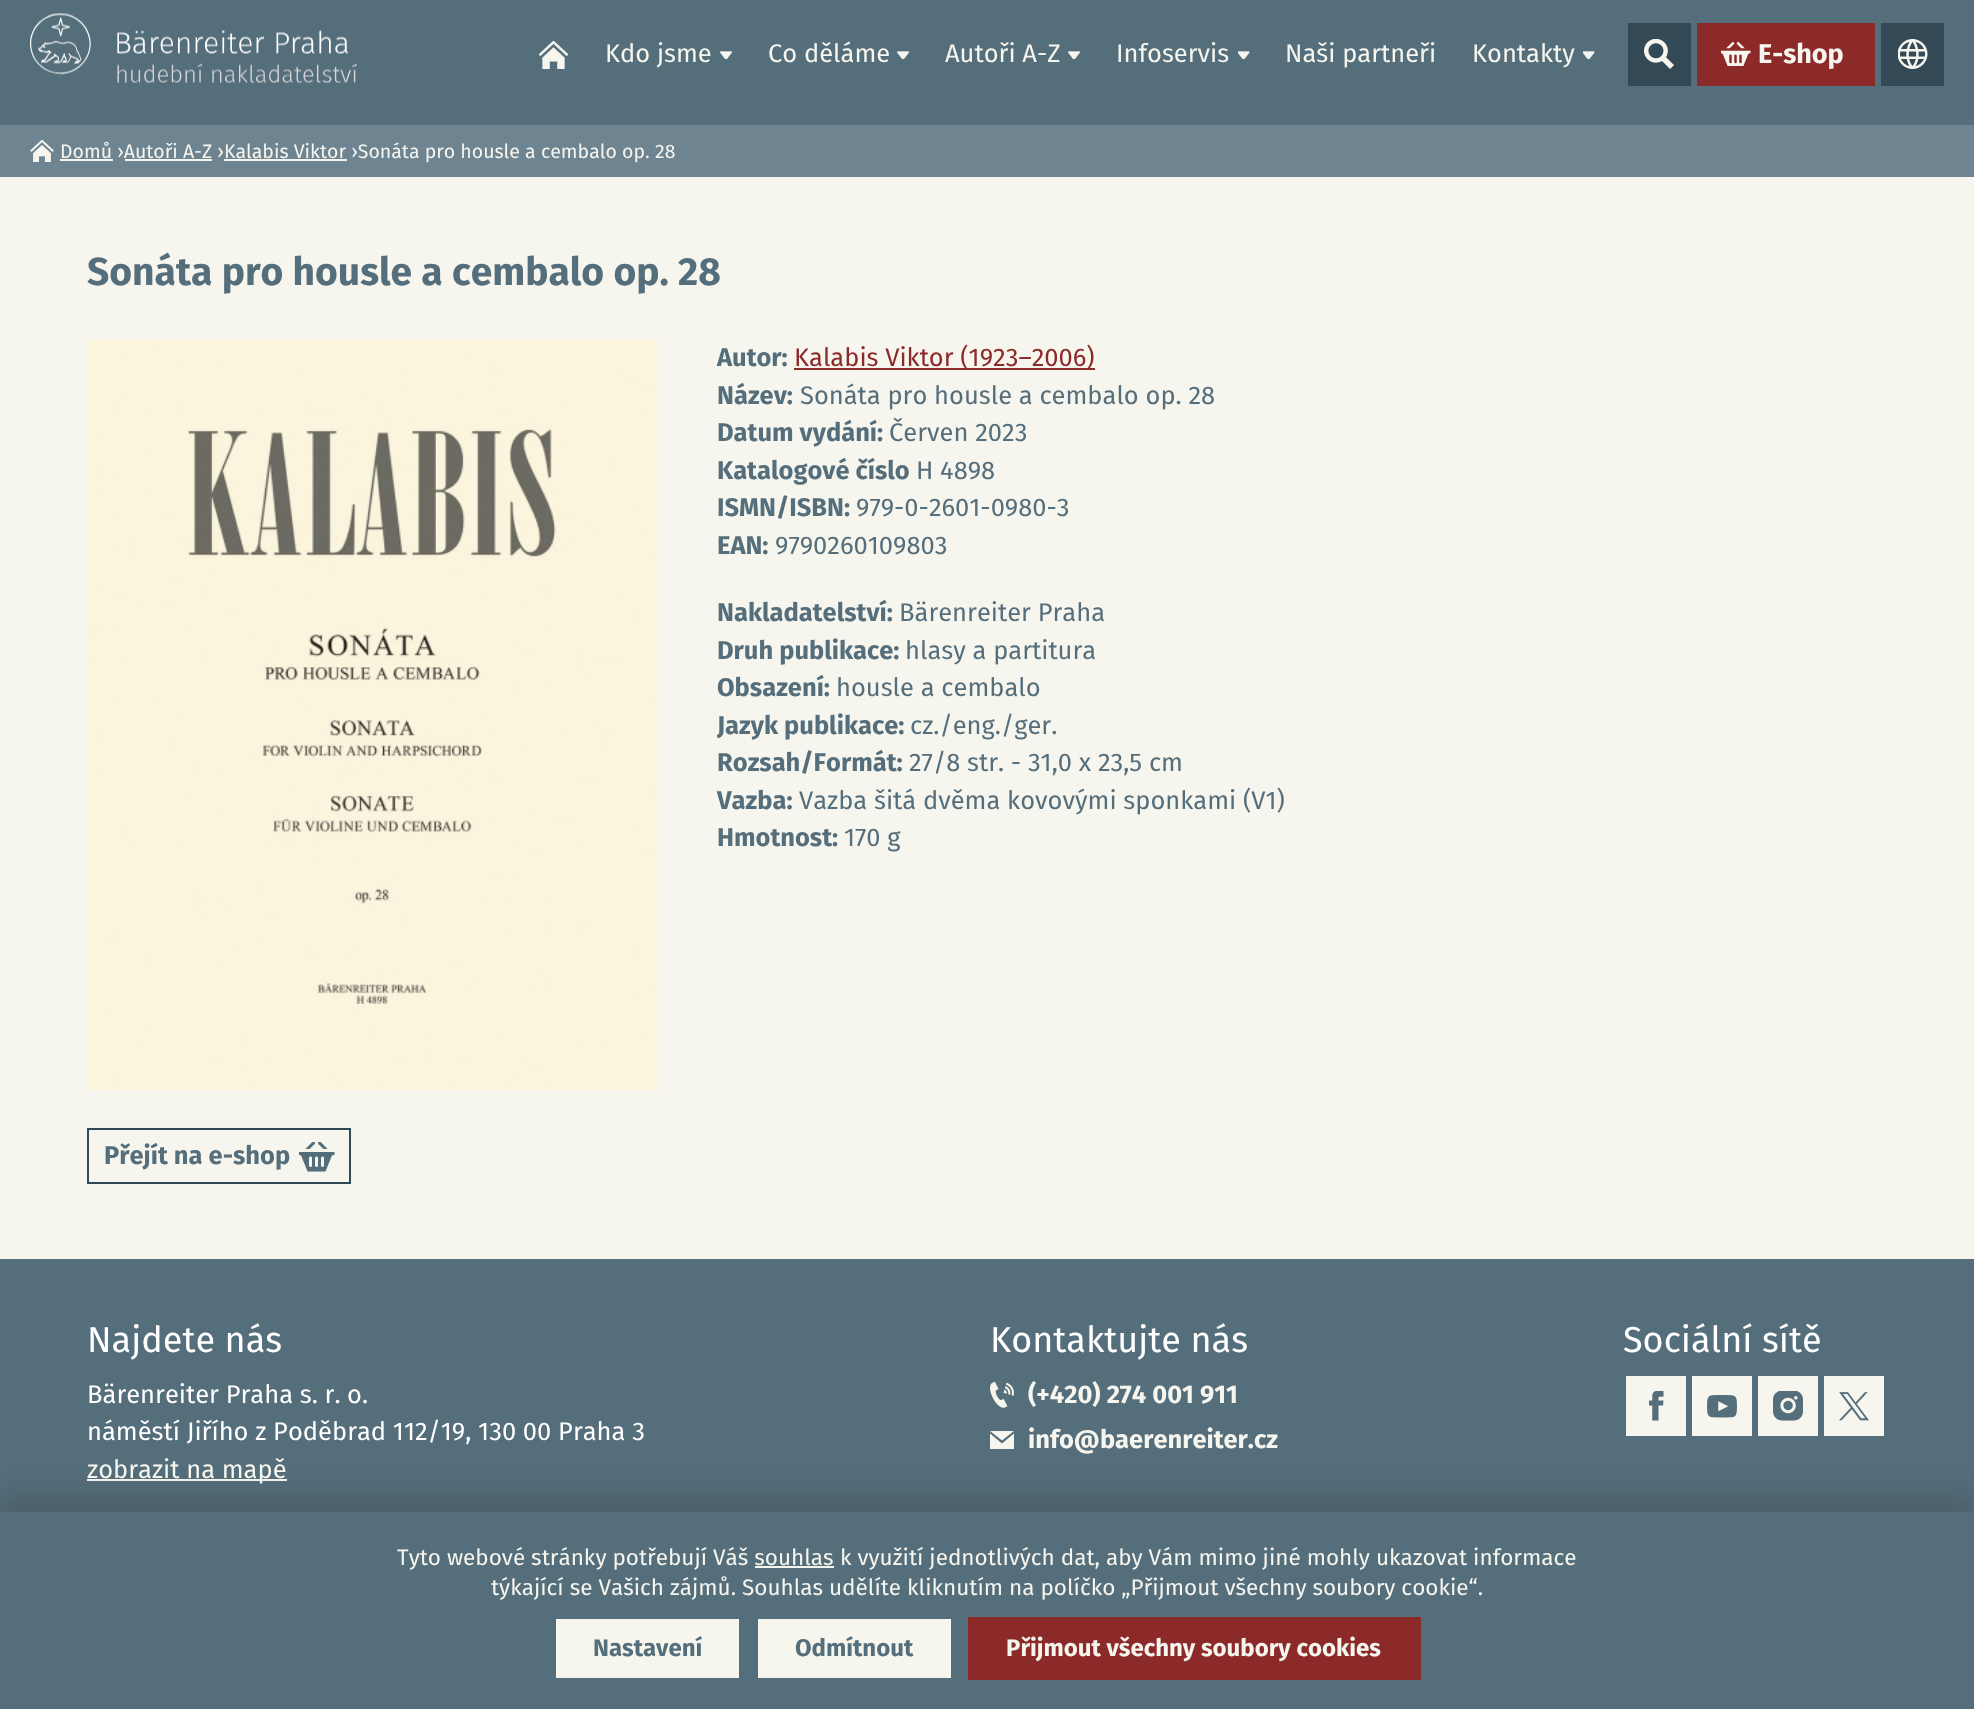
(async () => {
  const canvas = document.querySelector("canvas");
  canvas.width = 1974;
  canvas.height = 1709;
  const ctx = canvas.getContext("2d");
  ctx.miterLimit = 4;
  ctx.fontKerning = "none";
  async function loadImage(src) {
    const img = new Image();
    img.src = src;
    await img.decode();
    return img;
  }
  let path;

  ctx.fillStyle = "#556e7b";
  ctx.fillRect(0, 0, 1974, 1709);
  ctx.drawImage(await loadImage("img/1.png"), 30, 13, 327, 70);
  ctx.drawImage(await loadImage("img/2.png"), 539, 41, 30, 28);
  ctx.drawImage(await loadImage("img/3.png"), 720, 51, 12, 8);
  ctx.drawImage(await loadImage("img/3.png"), 897, 51, 12, 8);
  ctx.drawImage(await loadImage("img/3.png"), 1068, 51, 12, 8);
  ctx.drawImage(await loadImage("img/4.png"), 1238, 51, 12, 8);
  ctx.drawImage(await loadImage("img/4.png"), 1583, 51, 12, 8);
  ctx.fillStyle = "#334956";
  ctx.fillRect(1628, 23, 63, 63);
  ctx.drawImage(await loadImage("img/5.png"), 1644, 39, 30, 30);
  ctx.fillStyle = "#8c2a2a";
  ctx.fillRect(1697, 23, 178, 63);
  ctx.drawImage(await loadImage("img/6.png"), 1721, 42, 30, 24);
  ctx.fillStyle = "#334956";
  ctx.fillRect(1881, 23, 63, 63);
  ctx.drawImage(await loadImage("img/7.png"), 1898, 39, 30, 30);
  ctx.fillStyle = "#f6f5ee";
  ctx.fillRect(0, 177, 1974, 1082);
  ctx.fillStyle = "#6e8490";
  ctx.fillRect(0, 125, 1974, 52);
  ctx.drawImage(await loadImage("img/8.png"), 30, 140, 24, 22);
  for (const [x, y, w, h, color] of [
    [60, 159, 53, 2, "#f6f5ee"],
    [125, 159, 87, 2, "#f6f5ee"],
    [224, 159, 123, 2, "#f6f5ee"],
    [794, 368, 301, 2, "#8c2a2a"],
  ]) {
    ctx.fillStyle = color;
    ctx.fillRect(x, y, w, h);
  }
  ctx.drawImage(await loadImage("img/9.png"), 87, 339, 570, 752);
  ctx.strokeStyle = "#334956";
  ctx.lineWidth = 2;
  ctx.strokeRect(88, 1129, 262, 54);
  ctx.drawImage(await loadImage("img/10.png"), 299, 1142, 36, 30);
  ctx.fillStyle = "#f6f5ee";
  ctx.fillRect(87, 1479, 200, 2);
  ctx.drawImage(await loadImage("img/11.png"), 990, 1382, 24, 26);
  path = new Path2D("M1002 1440.5L990 1431H1014ZM1002 1443.5L990 1433.5V1449H1014V1433.5Z");
  ctx.fill(path);
  ctx.fillRect(1626, 1376, 60, 60);
  ctx.drawImage(await loadImage("img/12.png"), 1649, 1391, 15, 30);
  ctx.fillRect(1692, 1376, 60, 60);
  ctx.drawImage(await loadImage("img/13.png"), 1707, 1395, 30, 23);
  ctx.fillRect(1758, 1376, 60, 60);
  ctx.drawImage(await loadImage("img/14.png"), 1773, 1391, 30, 30);
  ctx.fillRect(1824, 1376, 60, 60);
  ctx.drawImage(await loadImage("img/15.png"), 1839, 1392, 30, 29);
  ctx.fillStyle = "rgba(0, 0, 0, 0.15)";
  ctx.filter = "blur(15px)";
  ctx.beginPath();
  ctx.rect(0, 1497, 1974, 198);
  ctx.fill();
  ctx.filter = "none";
  for (const [x, y, w, h, color] of [
    [0, 1512, 1974, 197, "#556e7b"],
    [755, 1566, 79, 2, "#f6f5ee"],
    [556, 1619, 183, 59, "#f6f5ee"],
    [758, 1619, 193, 59, "#f6f5ee"],
    [968, 1617, 453, 63, "#8c2a2a"],
  ]) {
    ctx.fillStyle = color;
    ctx.fillRect(x, y, w, h);
  }
  ctx.font = "25.5px Fira Sans";
  ctx.fillStyle = "#f6f5ee";
  for (const [text, x, y] of [
    ["Kdo jsme", 605, 62],
    ["Co děláme", 768, 62],
    ["Autoři A-Z", 945, 62],
    ["Infoservis", 1116, 62],
    ["Naši partneři", 1285, 62],
    ["Kontakty", 1472, 62],
  ]) {
    ctx.fillText(text, x, y);
  }
  ctx.font = "bold 27px Fira Sans";
  ctx.fillText("E-shop", 1758, 63);
  ctx.font = "19.5px Fira Sans";
  ctx.fillText("Domů ›Autoři A-Z ›Kalabis Viktor ›Sonáta pro housle a cembalo op.", 60, 158);
  ctx.fillText("28", 655, 158);
  ctx.font = "bold 39px Fira Sans";
  ctx.fillStyle = "#556e7b";
  ctx.fillText("Sonáta pro housle a cembalo op. 28", 87, 285);
  ctx.font = "bold 25.5px Fira Sans";
  ctx.fillText("Autor:", 717, 366);
  ctx.font = "25.5px Fira Sans";
  ctx.fillStyle = "#8c2a2a";
  ctx.fillText("Kalabis Viktor (1923–2006)", 794, 366);
  ctx.font = "bold 25.5px Fira Sans";
  ctx.fillStyle = "#556e7b";
  ctx.fillText("Název:", 717, 404);
  ctx.font = "25.5px Fira Sans";
  ctx.fillText("Sonáta pro housle a cembalo op. 28", 800, 404);
  ctx.font = "bold 25.5px Fira Sans";
  ctx.fillText("Datum vydání:", 717, 441);
  ctx.font = "25.5px Fira Sans";
  ctx.fillText("Červen 2023", 889, 441);
  ctx.font = "bold 25.5px Fira Sans";
  ctx.fillText("Katalogové číslo", 717, 479);
  ctx.font = "25.5px Fira Sans";
  ctx.fillText("H 4898", 916, 479);
  ctx.font = "bold 25.5px Fira Sans";
  ctx.fillText("ISMN/ISBN:", 717, 516);
  ctx.font = "25.5px Fira Sans";
  ctx.fillText("979-0-2601-0980-3", 856, 516);
  ctx.font = "bold 25.5px Fira Sans";
  ctx.fillText("EAN:", 717, 554);
  ctx.font = "25.5px Fira Sans";
  ctx.fillText("9790260109803", 775, 554);
  ctx.font = "bold 25.5px Fira Sans";
  ctx.fillText("Nakladatelství:", 717, 621);
  ctx.font = "25.5px Fira Sans";
  ctx.fillText("Bärenreiter Praha", 899, 621);
  ctx.font = "bold 25.5px Fira Sans";
  ctx.fillText("Druh publikace:", 717, 659);
  ctx.font = "25.5px Fira Sans";
  ctx.fillText("hlasy a partitura", 905, 659);
  ctx.font = "bold 25.5px Fira Sans";
  ctx.fillText("Obsazení:", 717, 696);
  ctx.font = "25.5px Fira Sans";
  ctx.fillText("housle a cembalo", 836, 696);
  ctx.font = "bold 25.5px Fira Sans";
  ctx.fillText("Jazyk publikace:", 717, 734);
  ctx.font = "25.5px Fira Sans";
  ctx.fillText("cz./eng./ger.", 910, 734);
  ctx.font = "bold 25.5px Fira Sans";
  ctx.fillText("Rozsah/Formát:", 717, 771);
  ctx.font = "25.5px Fira Sans";
  ctx.fillText("27/8 str. - 31,0 x 23,5 cm", 909, 771);
  ctx.font = "bold 25.5px Fira Sans";
  ctx.fillText("Vazba:", 717, 809);
  ctx.font = "25.5px Fira Sans";
  ctx.fillText("Vazba šitá dvěma kovovými sponkami (V1)", 799, 809);
  ctx.font = "bold 25.5px Fira Sans";
  ctx.fillText("Hmotnost:", 717, 846);
  ctx.font = "25.5px Fira Sans";
  ctx.fillText("170 g", 844, 846);
  ctx.font = "bold 25.5px Fira Sans";
  ctx.fillText("Přejít na e-shop", 104, 1164);
  ctx.font = "36px Fira Sans";
  ctx.fillStyle = "#ffffff";
  ctx.fillText("Najdete nás", 87, 1352);
  ctx.font = "25.5px Fira Sans";
  ctx.fillText("Bärenreiter Praha s. r.", 87, 1403);
  ctx.fillText("o.", 347, 1403);
  ctx.fillText("náměstí Jiřího z Poděbrad 112/19, 130 00 Praha 3", 87, 1440);
  ctx.fillStyle = "#f6f5ee";
  ctx.fillText("zobrazit na mapě", 87, 1478);
  ctx.font = "36px Fira Sans";
  ctx.fillStyle = "#ffffff";
  ctx.fillText("Kontaktujte nás", 990, 1352);
  ctx.font = "bold 25.5px Fira Sans";
  ctx.fillStyle = "#f6f5ee";
  ctx.fillText("(+420) 274 001 911", 1028, 1403);
  ctx.fillText("info@baerenreiter.cz", 1028, 1448);
  ctx.font = "36px Fira Sans";
  ctx.fillStyle = "#ffffff";
  ctx.fillText("Sociální sítě", 1623, 1352);
  ctx.font = "22.5px Fira Sans";
  ctx.fillStyle = "#f6f5ee";
  ctx.fillText("Tyto webové stránky potřebují Váš souhlas", 397, 1565);
  ctx.fillText("k využití jednotlivých dat, aby Vám mimo jiné mohly ukazovat informace", 840, 1565);
  ctx.fillText("týkající se Vašich zájmů. Souhlas udělíte kliknutím na políčko „Přijmout všechny soubory cookie“.", 491, 1595);
  ctx.font = "bold 24px Fira Sans";
  ctx.fillStyle = "#556e7b";
  ctx.fillText("Nastavení", 593, 1656);
  ctx.fillText("Odmítnout", 795, 1656);
  ctx.fillStyle = "#f6f5ee";
  ctx.fillText("Přijmout všechny soubory cookies", 1006, 1656);
})();
